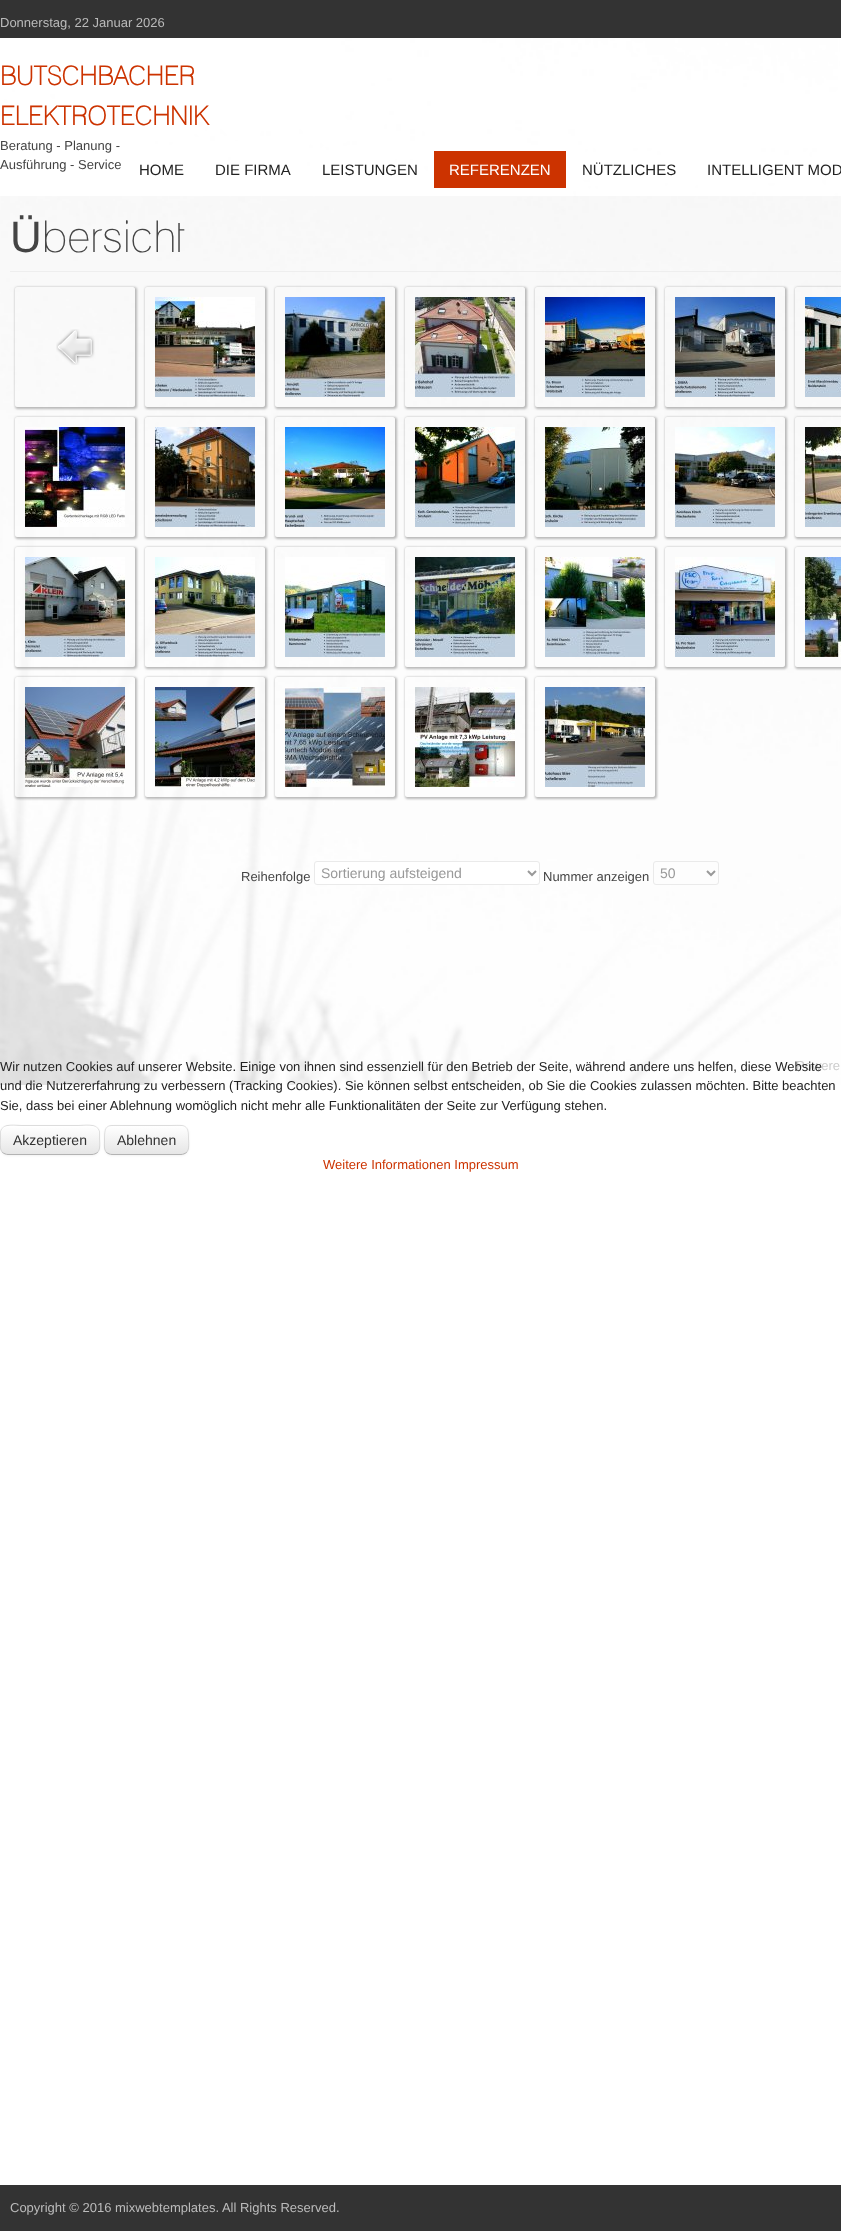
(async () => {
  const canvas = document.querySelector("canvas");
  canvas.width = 841;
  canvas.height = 2231;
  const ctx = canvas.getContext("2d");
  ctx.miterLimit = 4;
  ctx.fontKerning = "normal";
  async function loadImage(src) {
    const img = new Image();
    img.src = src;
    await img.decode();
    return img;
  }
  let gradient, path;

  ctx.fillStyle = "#ffffff";
  ctx.fillRect(0, 0, 841, 2231);
  ctx.drawImage(await loadImage("img/1.png"), 0, 38, 841, 1047);
  for (const [x, y, w, h, color] of [
    [0, 0, 841, 38, "#333333"],
    [0, 38, 841, 158, "rgba(255, 255, 255, 0.9)"],
    [434, 151, 132, 37, "#cc3300"],
    [10, 271, 831, 1, "#eeeeee"],
  ]) {
    ctx.fillStyle = color;
    ctx.fillRect(x, y, w, h);
  }
  ctx.save();
  path = new Path2D("M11 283H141V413H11ZM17 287H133C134 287 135 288 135 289V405C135 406 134 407 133 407H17C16 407 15 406 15 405V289C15 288 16 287 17 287Z");
  ctx.clip(path, "evenodd");
  ctx.fillStyle = "rgba(120, 120, 120, 0.5)";
  ctx.filter = "blur(1px)";
  ctx.beginPath();
  ctx.roundRect(15, 287, 122, 122, 3);
  ctx.fill();
  ctx.filter = "none";
  ctx.restore();
  ctx.drawImage(await loadImage("img/2.png"), 56, 329, 39, 36);
  ctx.save();
  path = new Path2D("M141 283H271V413H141ZM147 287H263C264 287 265 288 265 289V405C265 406 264 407 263 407H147C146 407 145 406 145 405V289C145 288 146 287 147 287Z");
  ctx.clip(path, "evenodd");
  ctx.fillStyle = "rgba(120, 120, 120, 0.5)";
  ctx.filter = "blur(1px)";
  ctx.beginPath();
  ctx.roundRect(145, 287, 122, 122, 3);
  ctx.fill();
  ctx.filter = "none";
  ctx.restore();
  ctx.drawImage(await loadImage("img/3.png"), 155, 297, 100, 100);
  ctx.save();
  path = new Path2D("M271 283H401V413H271ZM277 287H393C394 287 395 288 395 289V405C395 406 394 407 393 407H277C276 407 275 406 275 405V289C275 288 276 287 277 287Z");
  ctx.clip(path, "evenodd");
  ctx.fillStyle = "rgba(120, 120, 120, 0.5)";
  ctx.filter = "blur(1px)";
  ctx.beginPath();
  ctx.roundRect(275, 287, 122, 122, 3);
  ctx.fill();
  ctx.filter = "none";
  ctx.restore();
  ctx.drawImage(await loadImage("img/4.png"), 285, 297, 100, 100);
  ctx.save();
  path = new Path2D("M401 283H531V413H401ZM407 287H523C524 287 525 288 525 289V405C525 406 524 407 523 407H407C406 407 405 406 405 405V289C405 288 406 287 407 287Z");
  ctx.clip(path, "evenodd");
  ctx.fillStyle = "rgba(120, 120, 120, 0.5)";
  ctx.filter = "blur(1px)";
  ctx.beginPath();
  ctx.roundRect(405, 287, 122, 122, 3);
  ctx.fill();
  ctx.filter = "none";
  ctx.restore();
  ctx.drawImage(await loadImage("img/5.png"), 415, 297, 100, 100);
  ctx.save();
  path = new Path2D("M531 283H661V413H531ZM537 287H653C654 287 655 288 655 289V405C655 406 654 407 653 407H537C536 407 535 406 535 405V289C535 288 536 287 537 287Z");
  ctx.clip(path, "evenodd");
  ctx.fillStyle = "rgba(120, 120, 120, 0.5)";
  ctx.filter = "blur(1px)";
  ctx.beginPath();
  ctx.roundRect(535, 287, 122, 122, 3);
  ctx.fill();
  ctx.filter = "none";
  ctx.restore();
  ctx.drawImage(await loadImage("img/6.png"), 545, 297, 100, 100);
  ctx.save();
  path = new Path2D("M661 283H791V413H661ZM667 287H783C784 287 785 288 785 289V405C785 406 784 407 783 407H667C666 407 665 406 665 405V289C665 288 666 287 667 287Z");
  ctx.clip(path, "evenodd");
  ctx.fillStyle = "rgba(120, 120, 120, 0.5)";
  ctx.filter = "blur(1px)";
  ctx.beginPath();
  ctx.roundRect(665, 287, 122, 122, 3);
  ctx.fill();
  ctx.filter = "none";
  ctx.restore();
  ctx.drawImage(await loadImage("img/7.png"), 675, 297, 100, 100);
  ctx.save();
  path = new Path2D("M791 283H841V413H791ZM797 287H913C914 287 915 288 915 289V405C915 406 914 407 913 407H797C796 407 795 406 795 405V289C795 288 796 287 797 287Z");
  ctx.clip(path, "evenodd");
  ctx.fillStyle = "rgba(120, 120, 120, 0.5)";
  ctx.filter = "blur(1px)";
  ctx.beginPath();
  ctx.roundRect(795, 287, 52, 122, 3);
  ctx.fill();
  ctx.filter = "none";
  ctx.restore();
  ctx.drawImage(await loadImage("img/8.png"), 805, 297, 36, 100);
  ctx.save();
  path = new Path2D("M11 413H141V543H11ZM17 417H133C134 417 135 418 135 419V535C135 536 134 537 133 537H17C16 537 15 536 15 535V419C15 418 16 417 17 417Z");
  ctx.clip(path, "evenodd");
  ctx.fillStyle = "rgba(120, 120, 120, 0.5)";
  ctx.filter = "blur(1px)";
  ctx.beginPath();
  ctx.roundRect(15, 417, 122, 122, 3);
  ctx.fill();
  ctx.filter = "none";
  ctx.restore();
  ctx.drawImage(await loadImage("img/9.png"), 25, 427, 100, 100);
  ctx.save();
  path = new Path2D("M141 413H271V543H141ZM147 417H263C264 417 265 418 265 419V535C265 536 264 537 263 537H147C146 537 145 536 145 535V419C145 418 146 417 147 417Z");
  ctx.clip(path, "evenodd");
  ctx.fillStyle = "rgba(120, 120, 120, 0.5)";
  ctx.filter = "blur(1px)";
  ctx.beginPath();
  ctx.roundRect(145, 417, 122, 122, 3);
  ctx.fill();
  ctx.filter = "none";
  ctx.restore();
  ctx.drawImage(await loadImage("img/10.png"), 155, 427, 100, 100);
  ctx.save();
  path = new Path2D("M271 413H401V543H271ZM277 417H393C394 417 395 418 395 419V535C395 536 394 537 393 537H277C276 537 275 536 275 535V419C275 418 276 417 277 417Z");
  ctx.clip(path, "evenodd");
  ctx.fillStyle = "rgba(120, 120, 120, 0.5)";
  ctx.filter = "blur(1px)";
  ctx.beginPath();
  ctx.roundRect(275, 417, 122, 122, 3);
  ctx.fill();
  ctx.filter = "none";
  ctx.restore();
  ctx.drawImage(await loadImage("img/11.png"), 285, 427, 100, 100);
  ctx.save();
  path = new Path2D("M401 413H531V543H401ZM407 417H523C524 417 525 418 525 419V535C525 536 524 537 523 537H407C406 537 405 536 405 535V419C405 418 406 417 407 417Z");
  ctx.clip(path, "evenodd");
  ctx.fillStyle = "rgba(120, 120, 120, 0.5)";
  ctx.filter = "blur(1px)";
  ctx.beginPath();
  ctx.roundRect(405, 417, 122, 122, 3);
  ctx.fill();
  ctx.filter = "none";
  ctx.restore();
  ctx.drawImage(await loadImage("img/12.png"), 415, 427, 100, 100);
  ctx.save();
  path = new Path2D("M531 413H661V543H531ZM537 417H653C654 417 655 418 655 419V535C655 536 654 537 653 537H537C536 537 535 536 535 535V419C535 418 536 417 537 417Z");
  ctx.clip(path, "evenodd");
  ctx.fillStyle = "rgba(120, 120, 120, 0.5)";
  ctx.filter = "blur(1px)";
  ctx.beginPath();
  ctx.roundRect(535, 417, 122, 122, 3);
  ctx.fill();
  ctx.filter = "none";
  ctx.restore();
  ctx.drawImage(await loadImage("img/13.png"), 545, 427, 100, 100);
  ctx.save();
  path = new Path2D("M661 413H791V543H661ZM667 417H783C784 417 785 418 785 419V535C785 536 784 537 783 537H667C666 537 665 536 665 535V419C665 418 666 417 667 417Z");
  ctx.clip(path, "evenodd");
  ctx.fillStyle = "rgba(120, 120, 120, 0.5)";
  ctx.filter = "blur(1px)";
  ctx.beginPath();
  ctx.roundRect(665, 417, 122, 122, 3);
  ctx.fill();
  ctx.filter = "none";
  ctx.restore();
  ctx.drawImage(await loadImage("img/14.png"), 675, 427, 100, 100);
  ctx.save();
  path = new Path2D("M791 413H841V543H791ZM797 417H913C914 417 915 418 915 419V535C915 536 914 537 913 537H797C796 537 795 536 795 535V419C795 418 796 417 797 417Z");
  ctx.clip(path, "evenodd");
  ctx.fillStyle = "rgba(120, 120, 120, 0.5)";
  ctx.filter = "blur(1px)";
  ctx.beginPath();
  ctx.roundRect(795, 417, 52, 122, 3);
  ctx.fill();
  ctx.filter = "none";
  ctx.restore();
  ctx.drawImage(await loadImage("img/15.png"), 805, 427, 36, 100);
  ctx.save();
  path = new Path2D("M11 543H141V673H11ZM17 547H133C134 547 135 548 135 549V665C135 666 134 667 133 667H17C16 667 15 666 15 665V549C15 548 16 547 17 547Z");
  ctx.clip(path, "evenodd");
  ctx.fillStyle = "rgba(120, 120, 120, 0.5)";
  ctx.filter = "blur(1px)";
  ctx.beginPath();
  ctx.roundRect(15, 547, 122, 122, 3);
  ctx.fill();
  ctx.filter = "none";
  ctx.restore();
  ctx.drawImage(await loadImage("img/16.png"), 25, 557, 100, 100);
  ctx.save();
  path = new Path2D("M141 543H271V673H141ZM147 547H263C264 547 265 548 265 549V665C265 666 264 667 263 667H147C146 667 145 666 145 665V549C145 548 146 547 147 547Z");
  ctx.clip(path, "evenodd");
  ctx.fillStyle = "rgba(120, 120, 120, 0.5)";
  ctx.filter = "blur(1px)";
  ctx.beginPath();
  ctx.roundRect(145, 547, 122, 122, 3);
  ctx.fill();
  ctx.filter = "none";
  ctx.restore();
  ctx.drawImage(await loadImage("img/17.png"), 155, 557, 100, 100);
  ctx.save();
  path = new Path2D("M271 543H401V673H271ZM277 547H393C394 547 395 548 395 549V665C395 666 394 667 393 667H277C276 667 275 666 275 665V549C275 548 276 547 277 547Z");
  ctx.clip(path, "evenodd");
  ctx.fillStyle = "rgba(120, 120, 120, 0.5)";
  ctx.filter = "blur(1px)";
  ctx.beginPath();
  ctx.roundRect(275, 547, 122, 122, 3);
  ctx.fill();
  ctx.filter = "none";
  ctx.restore();
  ctx.drawImage(await loadImage("img/18.png"), 285, 557, 100, 100);
  ctx.save();
  path = new Path2D("M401 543H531V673H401ZM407 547H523C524 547 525 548 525 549V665C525 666 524 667 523 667H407C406 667 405 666 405 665V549C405 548 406 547 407 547Z");
  ctx.clip(path, "evenodd");
  ctx.fillStyle = "rgba(120, 120, 120, 0.5)";
  ctx.filter = "blur(1px)";
  ctx.beginPath();
  ctx.roundRect(405, 547, 122, 122, 3);
  ctx.fill();
  ctx.filter = "none";
  ctx.restore();
  ctx.drawImage(await loadImage("img/19.png"), 415, 557, 100, 100);
  ctx.save();
  path = new Path2D("M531 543H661V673H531ZM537 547H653C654 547 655 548 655 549V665C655 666 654 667 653 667H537C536 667 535 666 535 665V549C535 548 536 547 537 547Z");
  ctx.clip(path, "evenodd");
  ctx.fillStyle = "rgba(120, 120, 120, 0.5)";
  ctx.filter = "blur(1px)";
  ctx.beginPath();
  ctx.roundRect(535, 547, 122, 122, 3);
  ctx.fill();
  ctx.filter = "none";
  ctx.restore();
  ctx.drawImage(await loadImage("img/20.png"), 545, 557, 100, 100);
  ctx.save();
  path = new Path2D("M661 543H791V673H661ZM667 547H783C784 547 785 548 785 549V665C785 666 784 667 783 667H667C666 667 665 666 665 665V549C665 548 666 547 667 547Z");
  ctx.clip(path, "evenodd");
  ctx.fillStyle = "rgba(120, 120, 120, 0.5)";
  ctx.filter = "blur(1px)";
  ctx.beginPath();
  ctx.roundRect(665, 547, 122, 122, 3);
  ctx.fill();
  ctx.filter = "none";
  ctx.restore();
  ctx.drawImage(await loadImage("img/21.png"), 675, 557, 100, 100);
  ctx.save();
  path = new Path2D("M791 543H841V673H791ZM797 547H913C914 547 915 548 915 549V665C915 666 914 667 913 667H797C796 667 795 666 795 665V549C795 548 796 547 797 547Z");
  ctx.clip(path, "evenodd");
  ctx.fillStyle = "rgba(120, 120, 120, 0.5)";
  ctx.filter = "blur(1px)";
  ctx.beginPath();
  ctx.roundRect(795, 547, 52, 122, 3);
  ctx.fill();
  ctx.filter = "none";
  ctx.restore();
  ctx.drawImage(await loadImage("img/22.png"), 805, 557, 36, 100);
  ctx.save();
  path = new Path2D("M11 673H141V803H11ZM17 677H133C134 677 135 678 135 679V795C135 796 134 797 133 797H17C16 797 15 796 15 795V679C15 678 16 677 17 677Z");
  ctx.clip(path, "evenodd");
  ctx.fillStyle = "rgba(120, 120, 120, 0.5)";
  ctx.filter = "blur(1px)";
  ctx.beginPath();
  ctx.roundRect(15, 677, 122, 122, 3);
  ctx.fill();
  ctx.filter = "none";
  ctx.restore();
  ctx.drawImage(await loadImage("img/23.png"), 25, 687, 100, 100);
  ctx.save();
  path = new Path2D("M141 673H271V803H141ZM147 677H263C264 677 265 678 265 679V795C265 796 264 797 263 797H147C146 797 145 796 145 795V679C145 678 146 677 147 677Z");
  ctx.clip(path, "evenodd");
  ctx.fillStyle = "rgba(120, 120, 120, 0.5)";
  ctx.filter = "blur(1px)";
  ctx.beginPath();
  ctx.roundRect(145, 677, 122, 122, 3);
  ctx.fill();
  ctx.filter = "none";
  ctx.restore();
  ctx.drawImage(await loadImage("img/24.png"), 155, 687, 100, 100);
  ctx.save();
  path = new Path2D("M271 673H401V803H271ZM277 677H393C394 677 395 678 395 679V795C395 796 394 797 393 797H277C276 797 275 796 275 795V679C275 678 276 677 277 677Z");
  ctx.clip(path, "evenodd");
  ctx.fillStyle = "rgba(120, 120, 120, 0.5)";
  ctx.filter = "blur(1px)";
  ctx.beginPath();
  ctx.roundRect(275, 677, 122, 122, 3);
  ctx.fill();
  ctx.filter = "none";
  ctx.restore();
  ctx.drawImage(await loadImage("img/25.png"), 285, 687, 100, 100);
  ctx.save();
  path = new Path2D("M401 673H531V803H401ZM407 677H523C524 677 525 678 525 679V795C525 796 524 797 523 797H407C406 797 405 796 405 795V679C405 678 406 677 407 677Z");
  ctx.clip(path, "evenodd");
  ctx.fillStyle = "rgba(120, 120, 120, 0.5)";
  ctx.filter = "blur(1px)";
  ctx.beginPath();
  ctx.roundRect(405, 677, 122, 122, 3);
  ctx.fill();
  ctx.filter = "none";
  ctx.restore();
  ctx.drawImage(await loadImage("img/26.png"), 415, 687, 100, 100);
  ctx.save();
  path = new Path2D("M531 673H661V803H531ZM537 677H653C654 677 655 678 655 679V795C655 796 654 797 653 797H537C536 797 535 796 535 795V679C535 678 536 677 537 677Z");
  ctx.clip(path, "evenodd");
  ctx.fillStyle = "rgba(120, 120, 120, 0.5)";
  ctx.filter = "blur(1px)";
  ctx.beginPath();
  ctx.roundRect(535, 677, 122, 122, 3);
  ctx.fill();
  ctx.filter = "none";
  ctx.restore();
  ctx.drawImage(await loadImage("img/27.png"), 545, 687, 100, 100);
  ctx.fillStyle = "#ffffff";
  ctx.beginPath();
  ctx.roundRect(314.5, 861.5, 225, 23, 2.5);
  ctx.fill();
  ctx.strokeStyle = "#eaeaea";
  ctx.stroke();
  path = new Path2D("M528 871L532 875L536 871");
  ctx.strokeStyle = "#999999";
  ctx.lineWidth = 2;
  ctx.stroke(path);
  ctx.beginPath();
  ctx.roundRect(653.5, 861.5, 65, 23, 2.5);
  ctx.strokeStyle = "#eaeaea";
  ctx.lineWidth = 1;
  ctx.stroke();
  path = new Path2D("M707 871L711 875L715 871");
  ctx.strokeStyle = "#999999";
  ctx.lineWidth = 2;
  ctx.stroke(path);
  ctx.fillStyle = "rgba(0, 0, 0, 0.05)";
  ctx.filter = "blur(1px)";
  ctx.beginPath();
  ctx.roundRect(0, 1126, 100, 30, 8);
  ctx.fill();
  ctx.filter = "none";
  ctx.fillStyle = "#f5f5f5";
  ctx.beginPath();
  ctx.roundRect(0, 1125, 100, 30, 8);
  ctx.fill();
  ctx.save();
  ctx.beginPath();
  ctx.roundRect(0, 1125, 100, 30, 8);
  ctx.clip();
  gradient = ctx.createLinearGradient(50, 1126, 50, 1154);
  gradient.addColorStop(0, "#ffffff");
  gradient.addColorStop(1, "#e6e6e6");
  ctx.fillStyle = gradient;
  ctx.fillRect(0, 1126, 100, 28);
  ctx.restore();
  ctx.fillStyle = "#ffffff";
  path = new Path2D("M8 1127H92C96 1127 99 1130 99 1134C99 1123 85 1126 78 1126H22C15 1126 1 1123 1 1134C1 1130 4 1127 8 1127Z");
  ctx.fill(path);
  path = new Path2D("M97.5 1152.5C96 1153.5 94 1154.5 92 1154.5H8C6 1154.5 4 1153.5 2.5 1152.5");
  ctx.strokeStyle = "#b3b3b3";
  ctx.lineWidth = 1;
  ctx.stroke(path);
  path = new Path2D("M2.5 1152.5C-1 1148.5 .5 1142 .5 1137.5V1131.5C2.5 1122.5 16.5 1125.5 22 1125.5H78C83.5 1125.5 97.5 1122.5 99.5 1131.5V1137.5C99.5 1142 101 1148.5 97.5 1152.5");
  ctx.strokeStyle = "rgba(0, 0, 0, 0.1)";
  ctx.stroke(path);
  ctx.fillStyle = "rgba(0, 0, 0, 0.05)";
  ctx.filter = "blur(1px)";
  ctx.beginPath();
  ctx.roundRect(104, 1126, 85, 30, 8);
  ctx.fill();
  ctx.filter = "none";
  ctx.fillStyle = "#f5f5f5";
  ctx.beginPath();
  ctx.roundRect(104, 1125, 85, 30, 8);
  ctx.fill();
  ctx.save();
  ctx.beginPath();
  ctx.roundRect(104, 1125, 85, 30, 8);
  ctx.clip();
  gradient = ctx.createLinearGradient(147, 1126, 147, 1154);
  gradient.addColorStop(0, "#ffffff");
  gradient.addColorStop(1, "#e6e6e6");
  ctx.fillStyle = gradient;
  ctx.fillRect(104, 1126, 85, 28);
  ctx.restore();
  path = new Path2D("M186.5 1152.5C185 1153.5 183 1154.5 181 1154.5H112C110 1154.5 108 1153.5 106.5 1152.5");
  ctx.strokeStyle = "#b3b3b3";
  ctx.stroke(path);
  path = new Path2D("M106.5 1152.5C103.5 1149 104.5 1144 104.5 1140C104.5 1123.5 107 1125.5 123.5 1125.5H169.5C183 1125.5 188.5 1123 188.5 1137.5C188.5 1142 190 1148.5 186.5 1152.5");
  ctx.strokeStyle = "rgba(0, 0, 0, 0.1)";
  ctx.stroke(path);
  ctx.fillStyle = "#333333";
  ctx.fillRect(0, 2185, 841, 46);
  ctx.font = "13px Liberation Sans";
  ctx.fillStyle = "#bbbbbb";
  ctx.fillText("Donnerstag, 22 Januar 2026", 0, 27);
  ctx.font = "bold 26px 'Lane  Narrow'";
  ctx.fillStyle = "#cc3300";
  ctx.fillText("BUTSCHBACHER", 0, 85);
  ctx.fillText("ELEKTROTECHNIK", 0, 125);
  ctx.font = "13px Liberation Sans";
  ctx.fillStyle = "#444444";
  ctx.fillText("Beratung - Planung -", 0, 150);
  ctx.fillText("Ausführung - Service", 0, 169);
  ctx.font = "15px Liberation Sans";
  ctx.fillStyle = "#222222";
  for (const [text, x, y] of [
    ["HOME", 139, 175],
    ["DIE FIRMA", 215, 175],
    ["LEISTUNGEN", 322, 175],
  ]) {
    ctx.fillText(text, x, y);
  }
  ctx.fillStyle = "#ffffff";
  ctx.fillText("REFERENZEN", 449, 175);
  ctx.fillStyle = "#222222";
  ctx.fillText("NÜTZLICHES", 582, 175);
  ctx.fillText("INTELLIGENT MOD", 707, 175);
  ctx.font = "44px Liberation Sans";
  ctx.fillStyle = "#444444";
  ctx.fillText("Ü", 10, 252);
  ctx.font = "44px 'Lane  Narrow'";
  ctx.fillText("bersicht", 42, 252);
  ctx.font = "13px Liberation Sans";
  ctx.fillText("Reihenfolge", 241, 881);
  ctx.font = "14px Liberation Sans";
  ctx.fillStyle = "#999999";
  ctx.fillText("Sortierung aufsteigend", 321, 878);
  ctx.font = "13px Liberation Sans";
  ctx.fillStyle = "#444444";
  ctx.fillText("Nummer anzeigen", 543, 881);
  ctx.font = "14px Liberation Sans";
  ctx.fillStyle = "#999999";
  ctx.fillText("50", 660, 878);
  ctx.font = "13px Liberation Sans";
  ctx.fillStyle = "#cccccc";
  ctx.fillText("Powere", 796, 1070);
  ctx.fillStyle = "#222222";
  for (const [text, x, y] of [
    ["Wir nutzen Cookies auf unserer Website. Einige von ihnen sind essenziell für den Betrieb der Seite, während andere uns helfen, diese Website", 0, 1071],
    ["und die Nutzererfahrung zu verbessern (Tracking Cookies). Sie können selbst entscheiden, ob Sie die Cookies zulassen möchten. Bitte beachten", 0, 1090],
    ["Sie, dass bei einer Ablehnung womöglich nicht mehr alle Funktionalitäten der Seite zur Verfügung stehen.", 0, 1110],
  ]) {
    ctx.fillText(text, x, y);
  }
  ctx.font = "14px Liberation Sans";
  ctx.fillStyle = "#333333";
  ctx.fillText("Akzeptieren", 13, 1145);
  ctx.fillText("Ablehnen", 117, 1145);
  ctx.font = "13px Liberation Sans";
  ctx.fillStyle = "#cc3300";
  ctx.fillText("Weitere Informationen Impressum", 323, 1169);
  ctx.fillStyle = "#bbbbbb";
  ctx.fillText("Copyright © 2016 mixwebtemplates. All Rights Reserved.", 10, 2212);
})();
